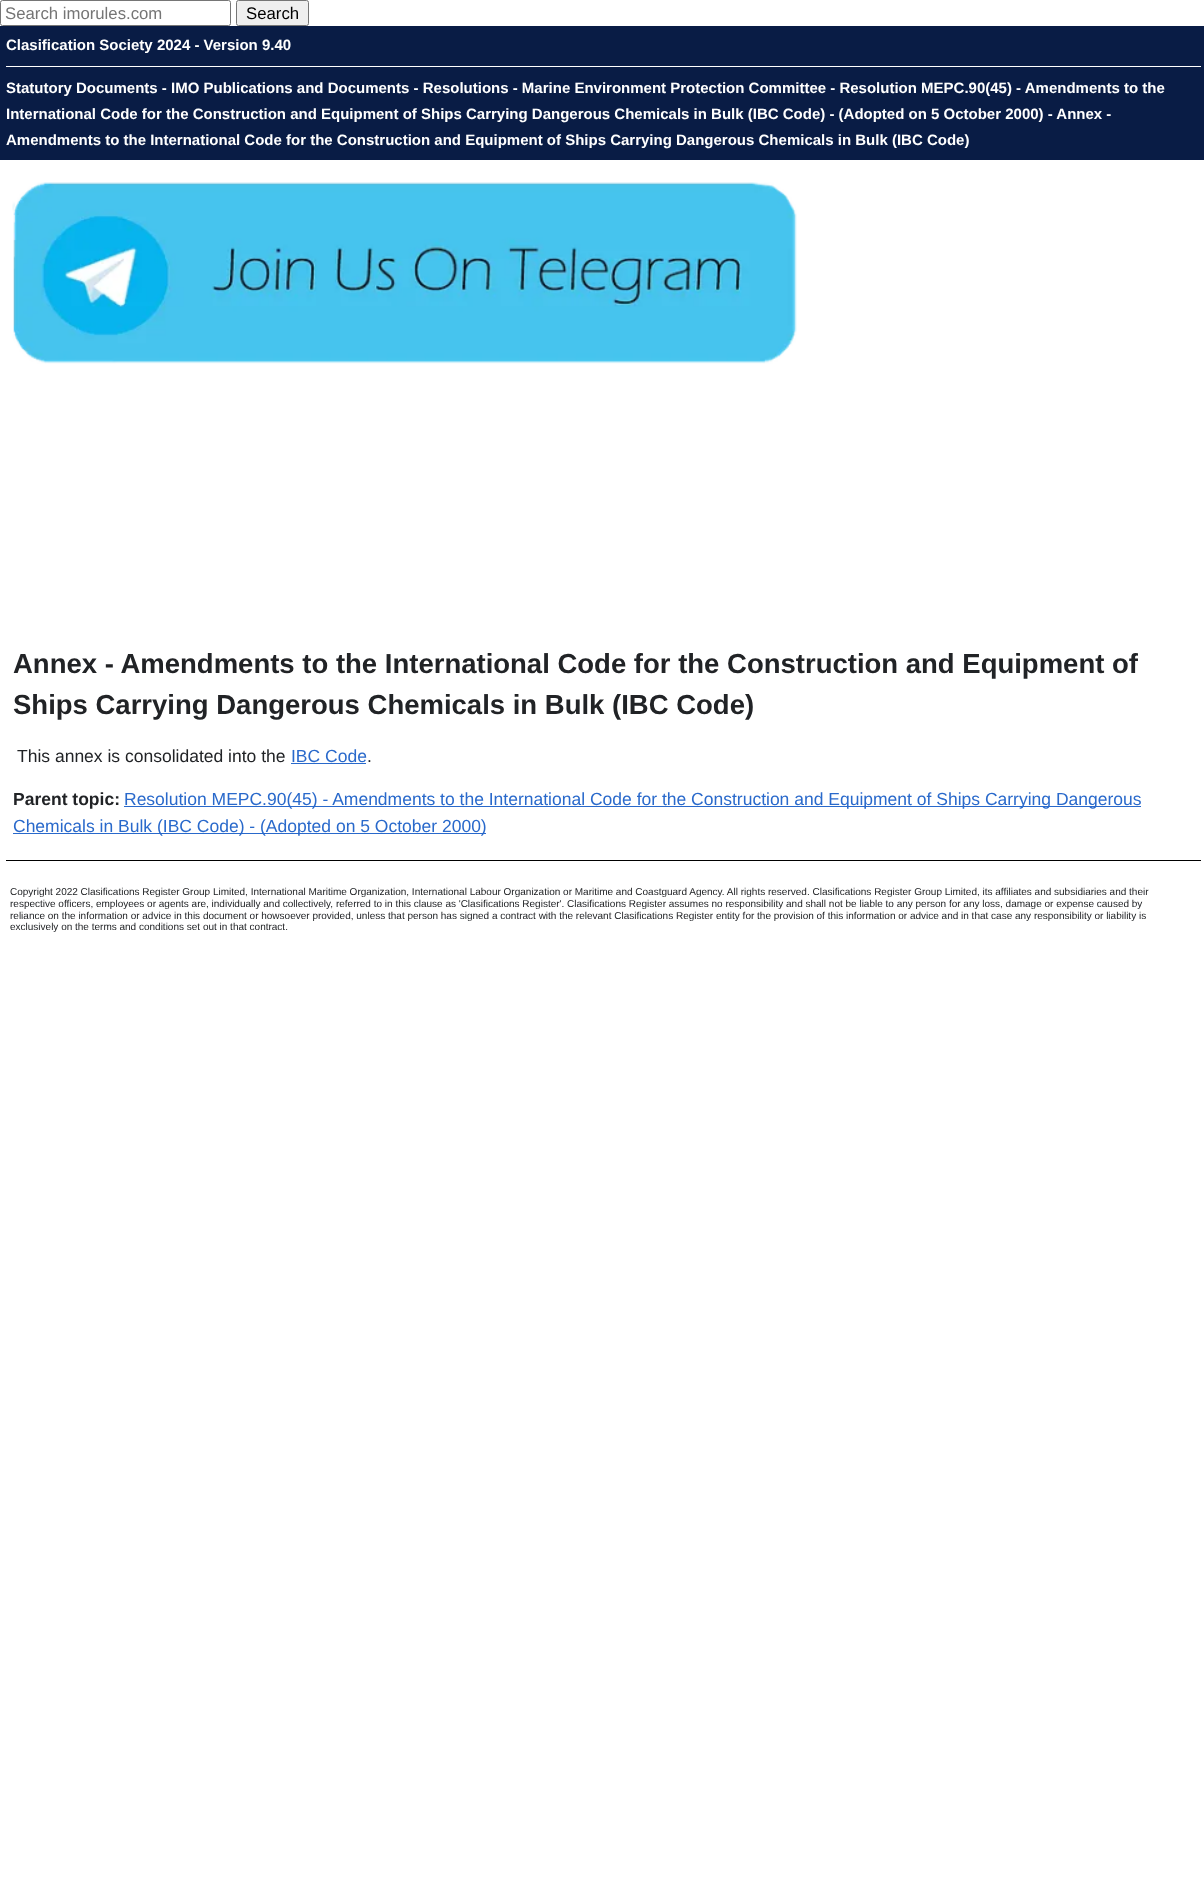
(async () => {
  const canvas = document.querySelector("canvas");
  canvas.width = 1204;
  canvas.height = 1903;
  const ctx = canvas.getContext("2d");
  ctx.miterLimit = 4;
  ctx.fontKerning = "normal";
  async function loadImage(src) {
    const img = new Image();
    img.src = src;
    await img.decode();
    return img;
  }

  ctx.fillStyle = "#ffffff";
  ctx.fillRect(0, 0, 1204, 1903);
  ctx.beginPath();
  ctx.roundRect(0.5, 0.5, 230, 25, 2);
  ctx.strokeStyle = "#767676";
  ctx.stroke();
  ctx.fillStyle = "#efefef";
  ctx.beginPath();
  ctx.roundRect(236.5, 0.5, 72, 25, 2);
  ctx.fill();
  ctx.stroke();
  ctx.fillStyle = "#091c45";
  ctx.fillRect(0, 26, 1204, 134);
  ctx.fillStyle = "#ffffff";
  ctx.fillRect(6, 66, 1195, 1);
  ctx.drawImage(await loadImage("img/1.png"), 12, 182, 785, 182);
  for (const [x, y, w, h, color] of [
    [291, 763, 75, 1, "#2969cb"],
    [124, 806, 1017, 1, "#2969cb"],
    [13, 833, 473, 1, "#2969cb"],
    [6, 860, 1195, 1, "#000000"],
  ]) {
    ctx.fillStyle = color;
    ctx.fillRect(x, y, w, h);
  }
  ctx.font = "16.75px Liberation Sans";
  ctx.fillStyle = "#757575";
  ctx.fillText("Search imorules.com", 5, 19);
  ctx.fillStyle = "#000000";
  ctx.fillText("Search", 246, 19);
  ctx.font = "bold 15px Liberation Sans";
  ctx.fillStyle = "#ffffff";
  for (const [text, x, y] of [
    ["Clasification Society 2024 - Version 9.40", 6, 50],
    ["Statutory Documents - IMO Publications and Documents - Resolutions - Marine Environment Protection Committee - Resolution MEPC.90(45) - Amendments to the", 6, 93],
    ["International Code for the Construction and Equipment of Ships Carrying Dangerous Chemicals in Bulk (IBC Code) - (Adopted on 5 October 2000) - Annex -", 6, 119],
    ["Amendments to the International Code for the Construction and Equipment of Ships Carrying Dangerous Chemicals in Bulk (IBC Code)", 6, 145],
  ]) {
    ctx.fillText(text, x, y);
  }
  ctx.font = "bold 27.5px Liberation Sans";
  ctx.fillStyle = "#212326";
  ctx.fillText("Annex - Amendments to the International Code for the Construction and Equipment of", 13, 673);
  ctx.fillText("Ships Carrying Dangerous Chemicals in Bulk (IBC Code)", 13, 714);
  ctx.font = "17.5px Liberation Sans";
  ctx.fillText("This annex is consolidated into the", 17, 762);
  ctx.fillStyle = "#2969cb";
  ctx.fillText("IBC Code", 291, 762);
  ctx.fillStyle = "#212326";
  ctx.fillText(".", 367, 762);
  ctx.font = "bold 17.5px Liberation Sans";
  ctx.fillText("Parent topic:", 13, 805);
  ctx.font = "17.5px Liberation Sans";
  ctx.fillStyle = "#2969cb";
  ctx.fillText("Resolution MEPC.90(45) - Amendments to the International Code for the Construction and Equipment of Ships Carrying Dangerous", 124, 805);
  ctx.fillText("Chemicals in Bulk (IBC Code) - (Adopted on 5 October 2000)", 13, 832);
  ctx.font = "10px Liberation Sans";
  ctx.fillStyle = "#212326";
  for (const [text, x, y] of [
    ["Copyright 2022 Clasifications Register Group Limited, International Maritime Organization, International Labour Organization or Maritime and Coastguard Agency. All rights reserved. Clasifications Register Group Limited, its affiliates and subsidiaries and their", 10, 895],
    ["respective officers, employees or agents are, individually and collectively, referred to in this clause as 'Clasifications Register'. Clasifications Register assumes no responsibility and shall not be liable to any person for any loss, damage or expense caused by", 10, 907],
    ["reliance on the information or advice in this document or howsoever provided, unless that person has signed a contract with the relevant Clasifications Register entity for the provision of this information or advice and in that case any responsibility or liability is", 10, 919],
    ["exclusively on the terms and conditions set out in that contract.", 10, 930],
  ]) {
    ctx.fillText(text, x, y);
  }
})();
